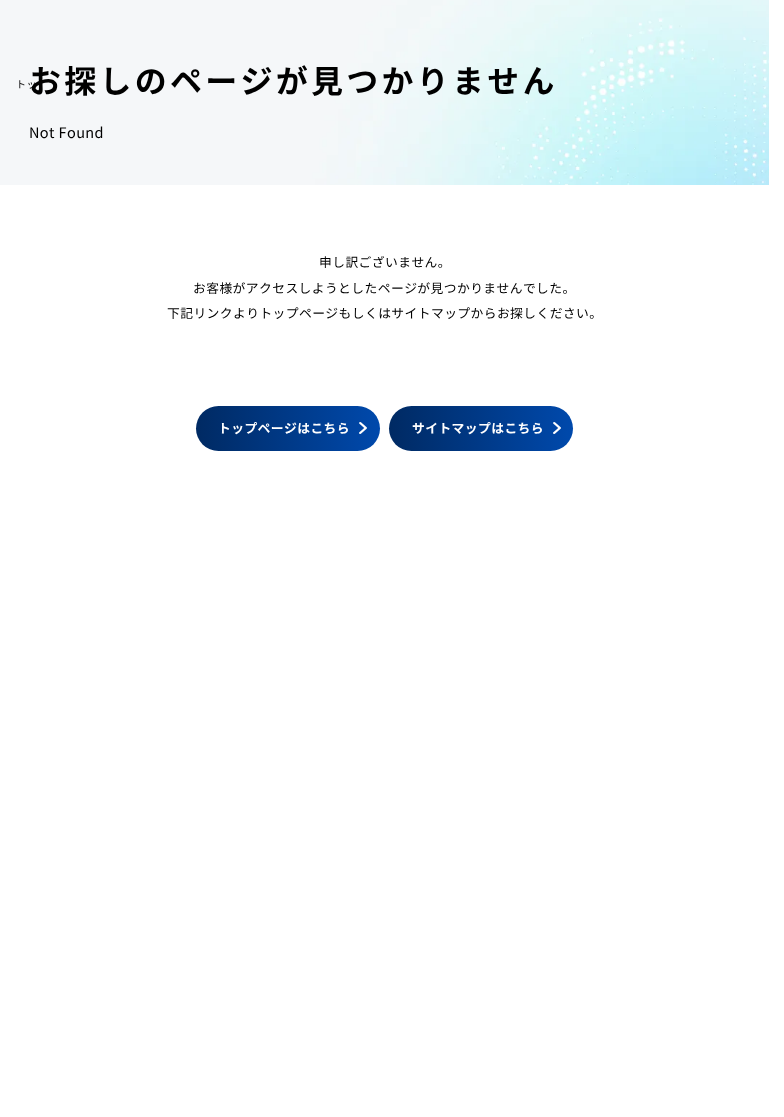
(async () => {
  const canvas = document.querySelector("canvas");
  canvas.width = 784;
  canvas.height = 1117;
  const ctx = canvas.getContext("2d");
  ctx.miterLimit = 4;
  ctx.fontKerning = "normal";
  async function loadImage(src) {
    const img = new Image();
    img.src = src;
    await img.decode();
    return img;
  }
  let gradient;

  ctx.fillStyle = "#ffffff";
  ctx.fillRect(0, 0, 784, 1117);
  ctx.drawImage(await loadImage("img/1.png"), 0, 0, 769, 185);
  gradient = ctx.createLinearGradient(196, 429, 564, 429);
  gradient.addColorStop(0, "#002a63");
  gradient.addColorStop(0.5, "#0049ac");
  gradient.addColorStop(1, "#002a63");
  ctx.fillStyle = gradient;
  ctx.beginPath();
  ctx.roundRect(196, 406, 184, 45, 22.5);
  ctx.fill();
  ctx.drawImage(await loadImage("img/2.png"), 359, 422, 8, 12);
  gradient = ctx.createLinearGradient(389, 429, 757, 429);
  gradient.addColorStop(0, "#002a63");
  gradient.addColorStop(0.5, "#0049ac");
  gradient.addColorStop(1, "#002a63");
  ctx.fillStyle = gradient;
  ctx.beginPath();
  ctx.roundRect(389, 406, 184, 45, 22.5);
  ctx.fill();
  ctx.drawImage(await loadImage("img/3.png"), 553, 422, 8, 12);
  ctx.letterSpacing = "3.25px";
  ctx.font = "bold 32px 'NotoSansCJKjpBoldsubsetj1'";
  ctx.fillStyle = "#000000";
  ctx.fillText("お探しのページが見つかりません", 29, 93);
  ctx.letterSpacing = "0.4px";
  ctx.font = "10px 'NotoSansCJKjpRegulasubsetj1'";
  ctx.fillText("トッ", 16, 88);
  ctx.font = "14.5px 'NotoSansCJKjpRegulasubsetj1'";
  ctx.fillText("Not Found", 29, 138);
  ctx.font = "12.8px 'NotoSansCJKjpRegulasubsetj1'";
  for (const [text, x, y] of [
    ["申し訳ございません。", 319, 267],
    ["お客様がアクセスしようとしたページが見つかりませんでした。", 193, 293],
    ["下記リンクよりトップページもしくはサイトマップからお探しください。", 167, 318],
  ]) {
    ctx.fillText(text, x, y);
  }
  ctx.font = "bold 12.8px 'NotoSansCJKjpBoldsubsetj1'";
  ctx.fillStyle = "#ffffff";
  ctx.fillText("トップページはこちら", 218, 433);
  ctx.fillText("サイトマップはこちら", 412, 433);
})();
